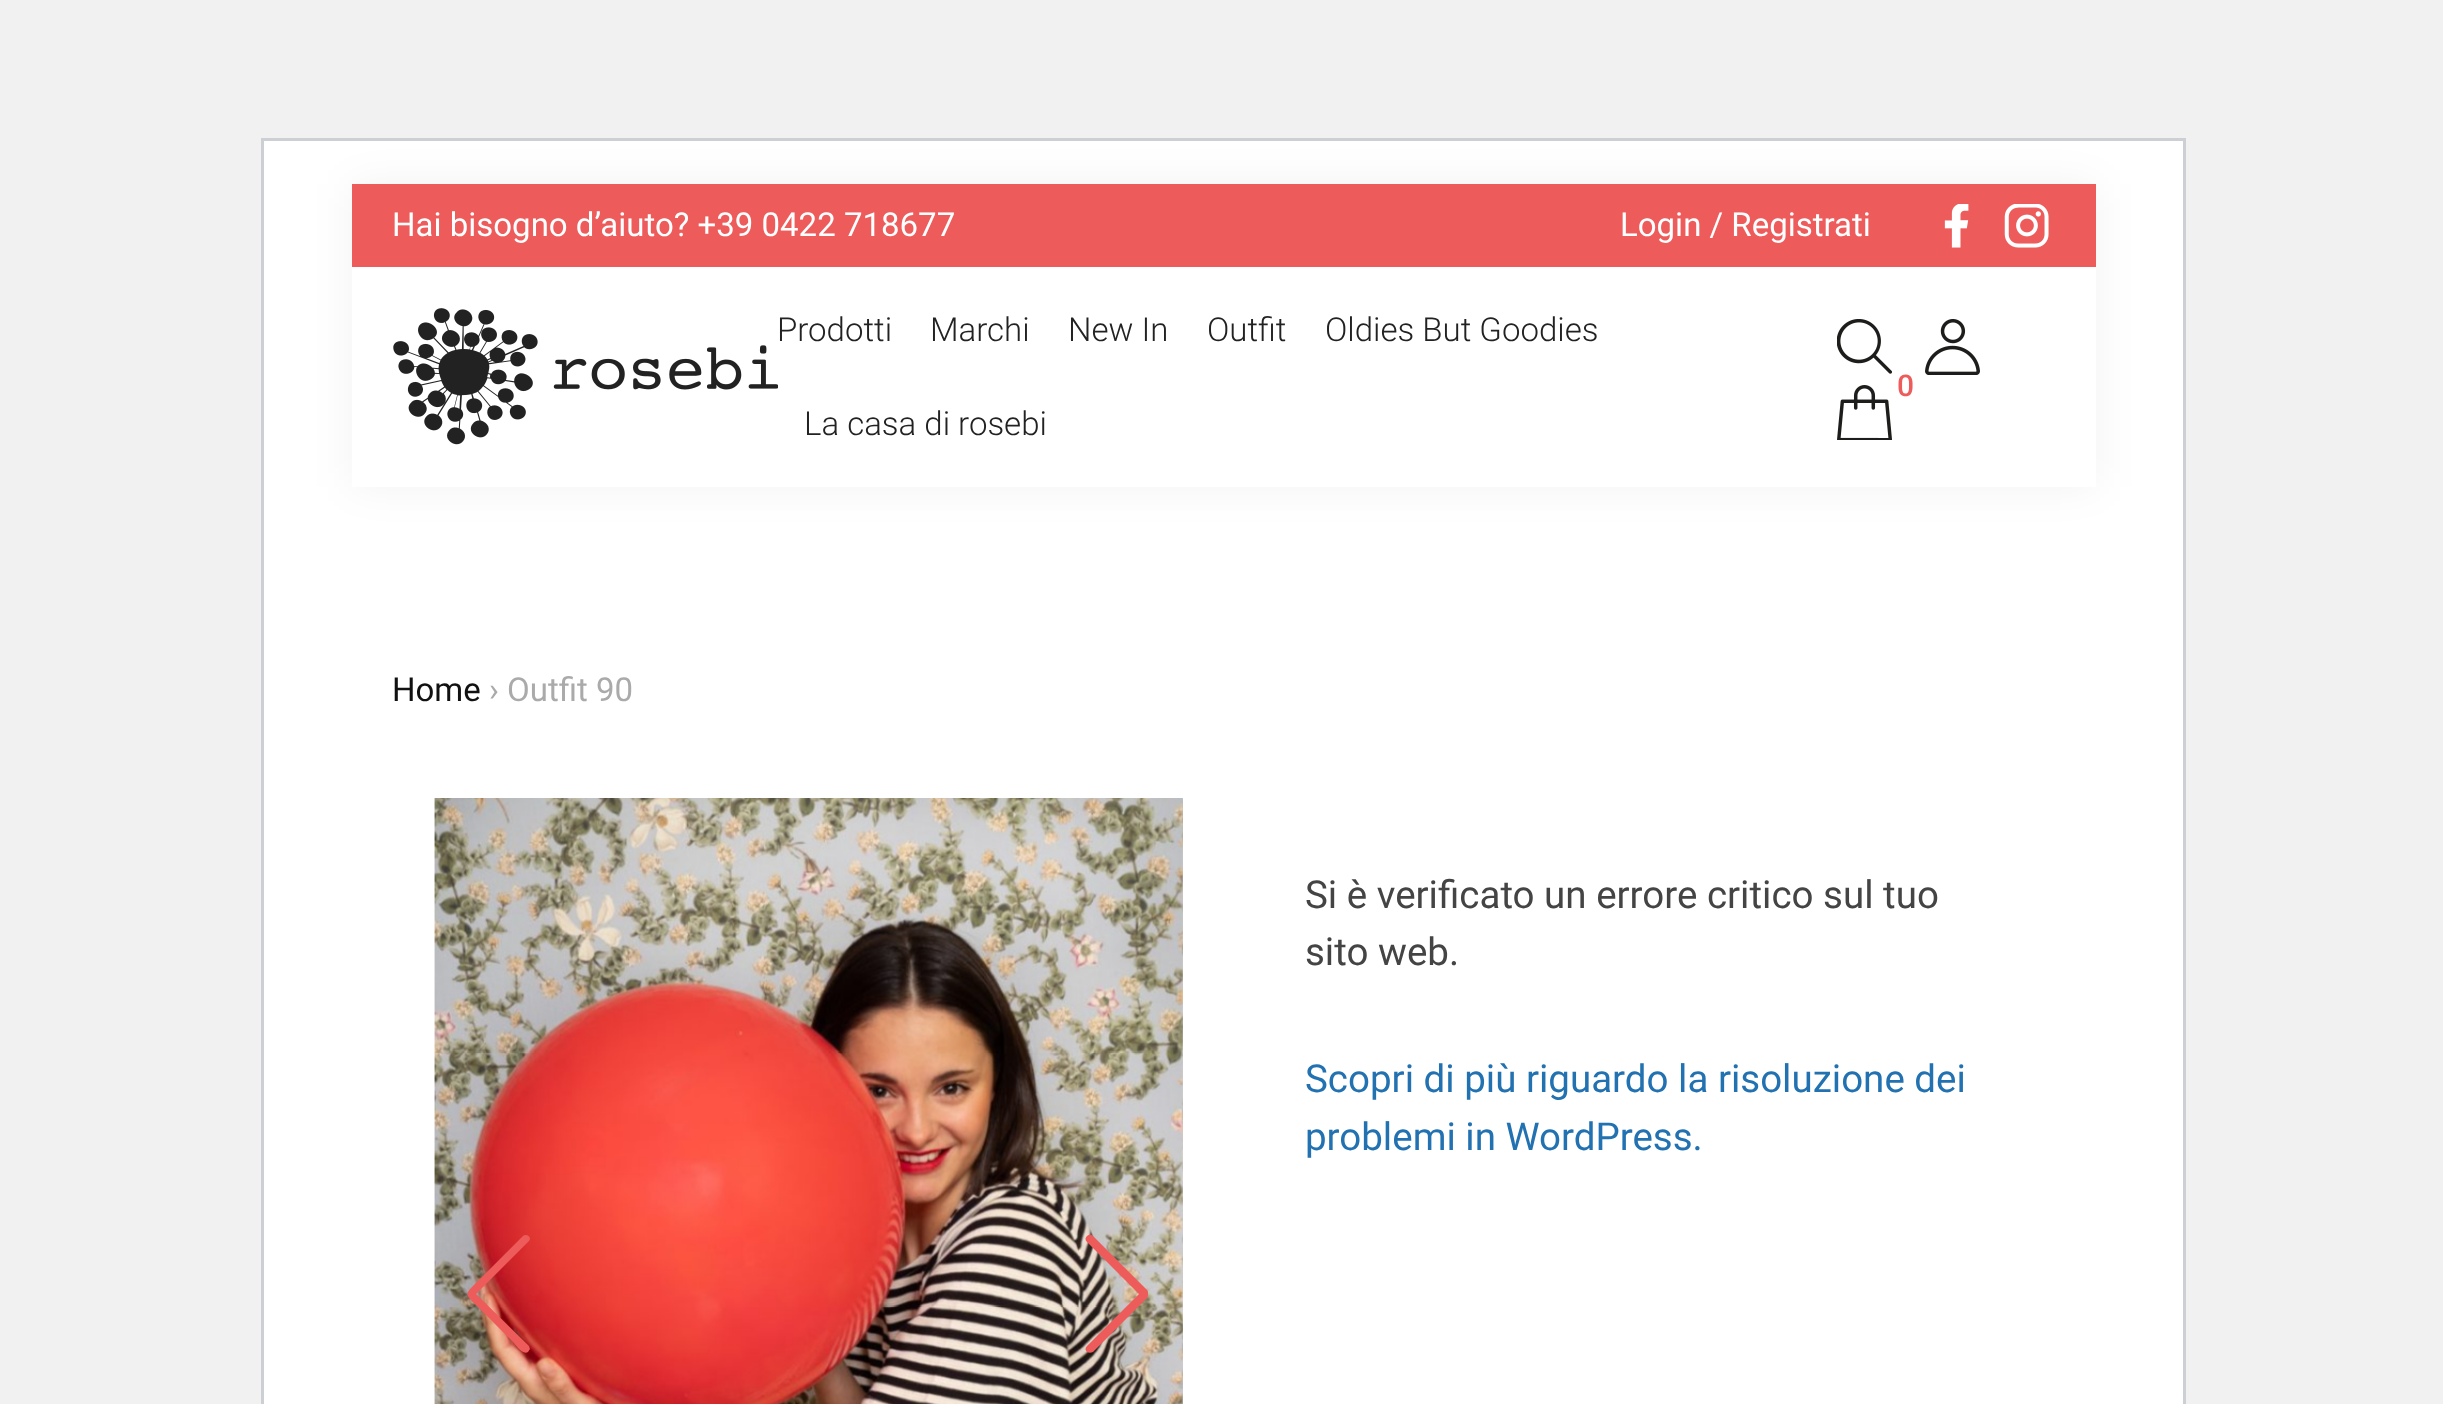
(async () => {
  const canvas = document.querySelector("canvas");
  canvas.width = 2443;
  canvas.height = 1404;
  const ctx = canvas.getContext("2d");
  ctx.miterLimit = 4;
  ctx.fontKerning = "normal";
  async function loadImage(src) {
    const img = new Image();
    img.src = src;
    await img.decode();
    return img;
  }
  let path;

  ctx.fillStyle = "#f1f1f1";
  ctx.fillRect(0, 0, 2443, 1404);
  ctx.fillStyle = "#ffffff";
  ctx.beginPath();
  ctx.rect(262.5, 139.5, 1922, 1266);
  ctx.fill();
  ctx.strokeStyle = "#ccd0d4";
  ctx.lineWidth = 3;
  ctx.stroke();
  ctx.fillStyle = "rgba(0, 0, 0, 0.05)";
  ctx.filter = "blur(20.5px)";
  ctx.beginPath();
  ctx.rect(352, 184, 1744, 303);
  ctx.fill();
  ctx.filter = "none";
  ctx.fillStyle = "#ffffff";
  ctx.fillRect(352, 267, 1744, 220);
  ctx.fillStyle = "#ed5b5b";
  ctx.fillRect(352, 184, 1744, 83);
  ctx.drawImage(await loadImage("img/1.png"), 1944, 204, 25, 44);
  ctx.drawImage(await loadImage("img/2.png"), 2004, 204, 45, 44);
  ctx.drawImage(await loadImage("img/3.png"), 393, 308, 385, 137);
  ctx.drawImage(await loadImage("img/4.png"), 1837, 319, 55, 55);
  ctx.drawImage(await loadImage("img/5.png"), 1925, 319, 55, 56);
  ctx.drawImage(await loadImage("img/6.png"), 1837, 385, 55, 55);
  ctx.drawImage(await loadImage("img/7.png"), 434, 798, 749, 606);
  ctx.drawImage(await loadImage("img/8.png"), 1181, 798, 2, 605);
  path = new Path2D("M523 1236C525 1234 530 1235 530 1239L529 1241L476 1294L529 1346L530 1349L528 1352C523 1356 514 1343 514 1343L478 1307C464 1293 464 1295 478 1281Z");
  ctx.fill(path);
  path = new Path2D("M1087 1352C1085 1350 1085 1348 1087 1346L1139 1294L1087 1242C1085 1240 1085 1238 1087 1236C1089 1234 1091 1234 1093 1236L1147 1290C1148 1291 1148 1292 1148 1294C1148 1295 1148 1297 1147 1298L1093 1352C1091 1353 1089 1353 1087 1352Z");
  ctx.fill(path);
  ctx.font = "33px Roboto";
  ctx.fillStyle = "#ffffff";
  ctx.fillText("Hai bisogno d’aiuto? +39 0422 718677", 392, 236);
  ctx.fillText("Login / Registrati", 1620, 236);
  ctx.font = "300 33px Roboto";
  ctx.fillStyle = "#222222";
  for (const [text, x, y] of [
    ["Prodotti", 777, 341],
    ["Marchi", 930, 341],
    ["New In", 1068, 341],
    ["Outfit", 1207, 341],
    ["Oldies But Goodies", 1325, 341],
    ["La casa di rosebi", 804, 435],
  ]) {
    ctx.fillText(text, x, y);
  }
  ctx.font = "500 30px Roboto";
  ctx.fillStyle = "#ed5b5b";
  ctx.fillText("0", 1897, 396);
  ctx.font = "33px Roboto";
  ctx.fillStyle = "#111111";
  ctx.fillText("Home", 392, 701);
  ctx.fillStyle = "#aaaaaa";
  ctx.fillText("› Outfit 90", 489, 701);
  ctx.font = "38.5px Roboto";
  ctx.fillStyle = "#444444";
  ctx.fillText("Si è verificato un errore critico sul tuo", 1305, 908);
  ctx.fillText("sito web.", 1305, 965);
  ctx.fillStyle = "#2271b1";
  ctx.fillText("Scopri di più riguardo la risoluzione dei", 1305, 1092);
  ctx.fillText("problemi in WordPress.", 1305, 1150);
})();
